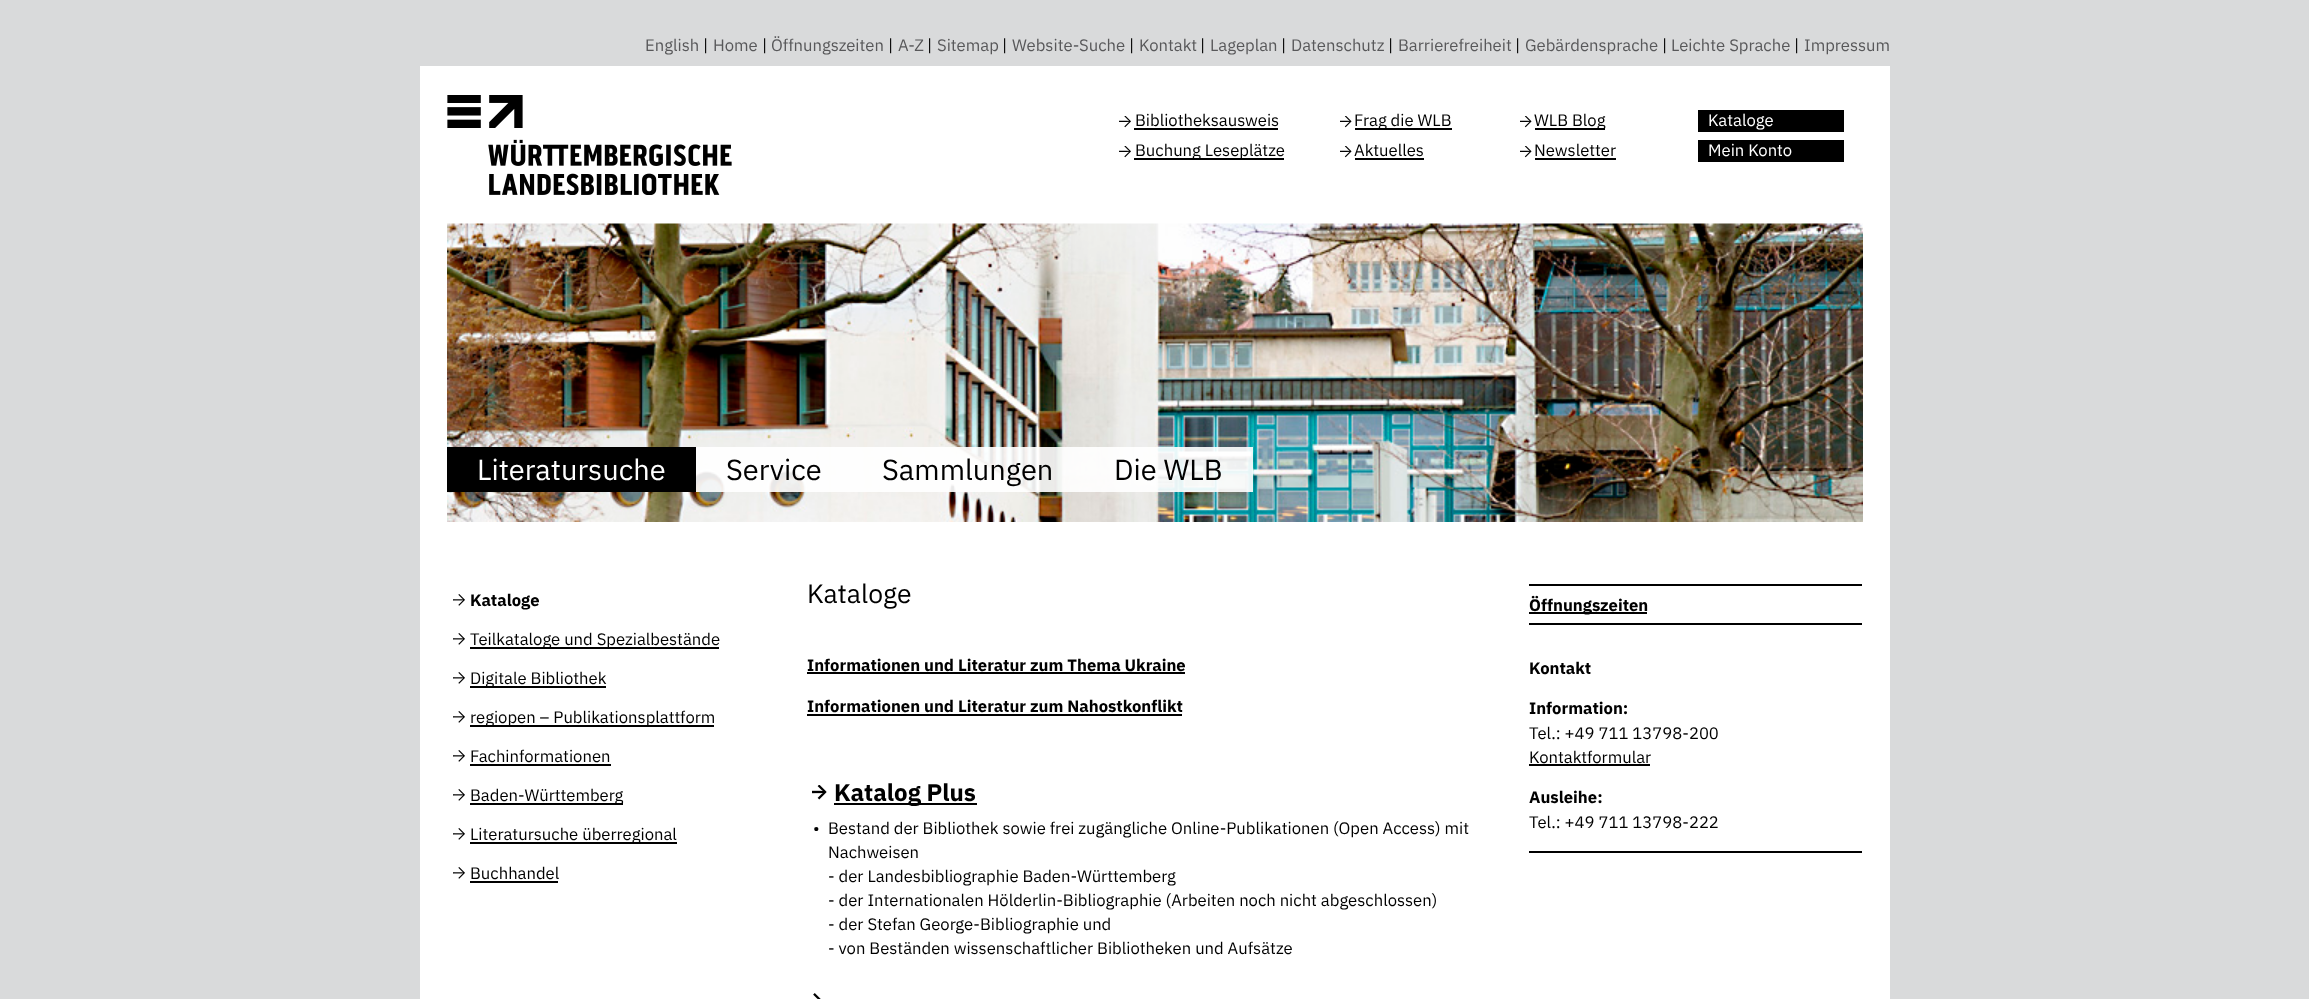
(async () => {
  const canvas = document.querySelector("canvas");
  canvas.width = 2309;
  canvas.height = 999;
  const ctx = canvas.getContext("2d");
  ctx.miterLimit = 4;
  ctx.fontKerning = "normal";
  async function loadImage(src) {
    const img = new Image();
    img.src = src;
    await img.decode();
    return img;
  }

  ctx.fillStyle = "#d9dadb";
  ctx.fillRect(0, 0, 2309, 999);
  ctx.fillStyle = "#ffffff";
  ctx.fillRect(420, 66, 1470, 933);
  ctx.drawImage(await loadImage("img/1.png"), 447, 95, 285, 100);
  ctx.drawImage(await loadImage("img/2.png"), 1119, 116, 12, 12);
  ctx.fillStyle = "#000000";
  ctx.fillRect(1134, 128, 144, 2);
  ctx.drawImage(await loadImage("img/3.png"), 1340, 116, 12, 12);
  ctx.fillRect(1355, 128, 97, 2);
  ctx.drawImage(await loadImage("img/3.png"), 1520, 116, 12, 12);
  ctx.fillRect(1535, 128, 70, 2);
  ctx.fillRect(1698, 110, 146, 22);
  ctx.drawImage(await loadImage("img/2.png"), 1119, 146, 12, 12);
  ctx.fillRect(1134, 158, 150, 2);
  ctx.drawImage(await loadImage("img/3.png"), 1340, 146, 12, 12);
  ctx.fillRect(1355, 158, 69, 2);
  ctx.drawImage(await loadImage("img/3.png"), 1520, 146, 12, 12);
  ctx.fillRect(1535, 158, 81, 2);
  ctx.fillRect(1698, 140, 146, 22);
  ctx.drawImage(await loadImage("img/4.png"), 447, 223, 1416, 299);
  ctx.fillStyle = "rgba(255, 255, 255, 0.91)";
  ctx.fillRect(696, 447, 557, 45);
  ctx.fillStyle = "#000000";
  ctx.fillRect(447, 447, 249, 45);
  ctx.drawImage(await loadImage("img/5.png"), 453, 594, 12, 12);
  ctx.drawImage(await loadImage("img/5.png"), 453, 633, 12, 12);
  ctx.fillRect(470, 647, 249, 2);
  ctx.drawImage(await loadImage("img/5.png"), 453, 672, 12, 12);
  ctx.fillRect(470, 686, 136, 2);
  ctx.drawImage(await loadImage("img/5.png"), 453, 711, 12, 12);
  ctx.fillRect(470, 725, 244, 2);
  ctx.drawImage(await loadImage("img/5.png"), 453, 750, 12, 12);
  ctx.fillRect(470, 764, 141, 2);
  ctx.drawImage(await loadImage("img/5.png"), 453, 789, 12, 12);
  ctx.fillRect(470, 803, 153, 2);
  ctx.drawImage(await loadImage("img/5.png"), 453, 828, 12, 12);
  ctx.fillRect(470, 842, 207, 2);
  ctx.drawImage(await loadImage("img/5.png"), 453, 867, 12, 12);
  for (const [x, y, w, h, color] of [
    [470, 881, 88, 2, "#000000"],
    [807, 672, 378, 2, "#000000"],
    [807, 714, 375, 2, "#000000"],
  ]) {
    ctx.fillStyle = color;
    ctx.fillRect(x, y, w, h);
  }
  ctx.drawImage(await loadImage("img/6.png"), 812, 785, 15, 15);
  ctx.fillRect(834, 803, 143, 2);
  ctx.drawImage(await loadImage("img/7.png"), 813, 993, 8, 6);
  for (const [x, y, w, h, color] of [
    [1529, 584, 333, 2, "#000000"],
    [1529, 612, 118, 2, "#000000"],
    [1529, 623, 333, 2, "#000000"],
    [1529, 764, 121, 2, "#000000"],
    [1529, 851, 333, 2, "#000000"],
  ]) {
    ctx.fillStyle = color;
    ctx.fillRect(x, y, w, h);
  }
  ctx.font = "16.65px IBM Plex Sans";
  ctx.fillStyle = "#58585a";
  ctx.fillText("English", 645, 51);
  ctx.fillStyle = "#000000";
  ctx.fillText("|", 703, 51);
  ctx.fillStyle = "#58585a";
  ctx.fillText("Home", 713, 51);
  ctx.fillStyle = "#000000";
  ctx.fillText("|", 762, 51);
  ctx.fillStyle = "#58585a";
  ctx.fillText("Öffnungszeiten", 771, 51);
  ctx.fillStyle = "#000000";
  ctx.fillText("|", 888, 51);
  ctx.fillStyle = "#58585a";
  ctx.fillText("A-Z", 898, 51);
  ctx.fillStyle = "#000000";
  ctx.fillText("|", 927, 51);
  ctx.fillStyle = "#58585a";
  ctx.fillText("Sitemap", 937, 51);
  ctx.fillStyle = "#000000";
  ctx.fillText("|", 1002, 51);
  ctx.fillStyle = "#58585a";
  ctx.fillText("Website-Suche", 1012, 51);
  ctx.fillStyle = "#000000";
  ctx.fillText("|", 1129, 51);
  ctx.fillStyle = "#58585a";
  ctx.fillText("Kontakt", 1139, 51);
  ctx.fillStyle = "#000000";
  ctx.fillText("|", 1200, 51);
  ctx.fillStyle = "#58585a";
  ctx.fillText("Lageplan", 1210, 51);
  ctx.fillStyle = "#000000";
  ctx.fillText("|", 1281, 51);
  ctx.fillStyle = "#58585a";
  ctx.fillText("Datenschutz", 1291, 51);
  ctx.fillStyle = "#000000";
  ctx.fillText("|", 1388, 51);
  ctx.fillStyle = "#58585a";
  ctx.fillText("Barrierefreiheit", 1398, 51);
  ctx.fillStyle = "#000000";
  ctx.fillText("|", 1515, 51);
  ctx.fillStyle = "#58585a";
  ctx.fillText("Gebärdensprache", 1525, 51);
  ctx.fillStyle = "#000000";
  ctx.fillText("|", 1662, 51);
  ctx.fillStyle = "#58585a";
  ctx.fillText("Leichte Sprache", 1671, 51);
  ctx.fillStyle = "#000000";
  ctx.fillText("|", 1794, 51);
  ctx.fillStyle = "#58585a";
  ctx.fillText("Impressum", 1804, 51);
  ctx.fillStyle = "#000000";
  for (const [text, x, y] of [
    ["Bibliotheksausweis", 1135, 126],
    ["Frag die WLB", 1354, 126],
    ["WLB Blog", 1534, 126],
  ]) {
    ctx.fillText(text, x, y);
  }
  ctx.fillStyle = "#ffffff";
  ctx.fillText("Kataloge", 1708, 126);
  ctx.fillStyle = "#000000";
  for (const [text, x, y] of [
    ["Buchung Leseplätze", 1135, 156],
    ["Aktuelles", 1354, 156],
    ["Newsletter", 1534, 156],
  ]) {
    ctx.fillText(text, x, y);
  }
  ctx.fillStyle = "#ffffff";
  ctx.fillText("Mein Konto", 1708, 156);
  ctx.font = "29px IBM Plex Sans";
  ctx.fillText("Literatursuche", 477, 480);
  ctx.fillStyle = "#000000";
  for (const [text, x, y] of [
    ["Service", 726, 480],
    ["Sammlungen", 882, 480],
    ["Die WLB", 1114, 480],
  ]) {
    ctx.fillText(text, x, y);
  }
  ctx.font = "bold 16.65px IBM Plex Sans";
  ctx.fillText("Kataloge", 470, 606);
  ctx.font = "16.65px IBM Plex Sans";
  for (const [text, x, y] of [
    ["Teilkataloge und Spezialbestände", 470, 645],
    ["Digitale Bibliothek", 470, 684],
    ["regiopen – Publikationsplattform", 470, 723],
    ["Fachinformationen", 470, 762],
    ["Baden-Württemberg", 470, 801],
    ["Literatursuche überregional", 470, 840],
    ["Buchhandel", 470, 879],
  ]) {
    ctx.fillText(text, x, y);
  }
  ctx.font = "26.5px IBM Plex Sans";
  ctx.fillText("Kataloge", 807, 603);
  ctx.font = "bold 16.65px IBM Plex Sans";
  ctx.fillText("Informationen und Literatur zum Thema Ukraine", 807, 671);
  ctx.fillText("Informationen und Literatur zum Nahostkonflikt", 807, 712);
  ctx.font = "bold 24px IBM Plex Sans";
  ctx.fillText("Katalog Plus", 834, 801);
  ctx.font = "16.65px IBM Plex Sans";
  for (const [text, x, y] of [
    ["•", 813, 834],
    ["Bestand der Bibliothek sowie frei zugängliche Online-Publikationen (Open Access) mit", 828, 834],
    ["Nachweisen", 828, 858],
    ["- der Landesbibliographie Baden-Württemberg", 828, 882],
    ["- der Internationalen Hölderlin-Bibliographie (Arbeiten noch nicht abgeschlossen)", 828, 906],
    ["- der Stefan George-Bibliographie und", 828, 930],
    ["- von Beständen wissenschaftlicher Bibliotheken und Aufsätze", 828, 954],
  ]) {
    ctx.fillText(text, x, y);
  }
  ctx.font = "bold 16.65px IBM Plex Sans";
  for (const [text, x, y] of [
    ["Öffnungszeiten", 1529, 611],
    ["Kontakt", 1529, 674],
    ["Information:", 1529, 714],
  ]) {
    ctx.fillText(text, x, y);
  }
  ctx.font = "16.65px IBM Plex Sans";
  ctx.fillText("Tel.: +49 711 13798-200", 1529, 739);
  ctx.fillText("Kontaktformular", 1529, 763);
  ctx.font = "bold 16.65px IBM Plex Sans";
  ctx.fillText("Ausleihe:", 1529, 803);
  ctx.font = "16.65px IBM Plex Sans";
  ctx.fillText("Tel.: +49 711 13798-222", 1529, 828);
})();
